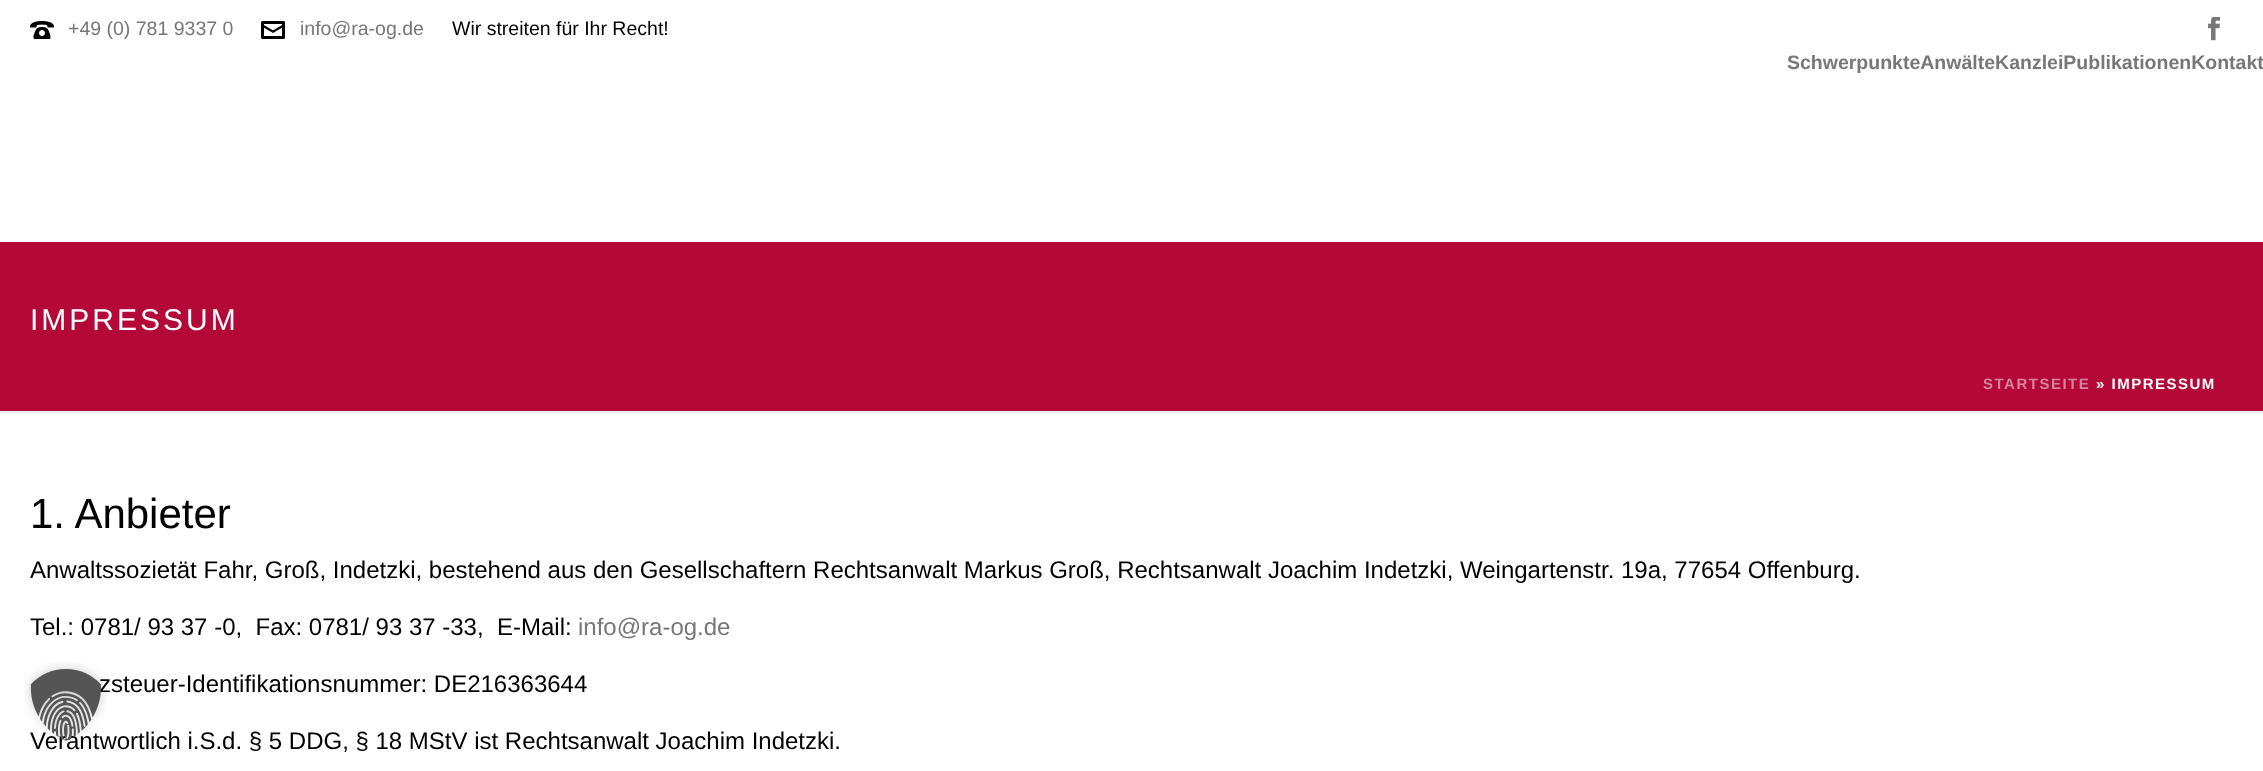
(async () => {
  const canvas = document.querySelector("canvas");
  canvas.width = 2263;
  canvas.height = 771;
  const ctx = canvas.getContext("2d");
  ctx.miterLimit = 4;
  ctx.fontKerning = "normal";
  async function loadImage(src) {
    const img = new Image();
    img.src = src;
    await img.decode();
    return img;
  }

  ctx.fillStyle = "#ffffff";
  ctx.fillRect(0, 0, 2263, 771);
  ctx.fillStyle = "#ededed";
  ctx.fillRect(0, 411, 2263, 2);
  ctx.drawImage(await loadImage("img/1.png"), 30, 21, 24, 18);
  ctx.drawImage(await loadImage("img/2.png"), 261, 21, 24, 18);
  ctx.drawImage(await loadImage("img/3.png"), 2208, 17, 12, 24);
  ctx.fillStyle = "#b30838";
  ctx.fillRect(0, 242, 2263, 169);
  ctx.font = "19.5px Liberation Sans";
  ctx.fillStyle = "#777777";
  ctx.fillText("+49 (0) 781 9337 0", 68, 35);
  ctx.fillText("info@ra-og.de", 300, 35);
  ctx.fillStyle = "#000000";
  ctx.fillText("Wir streiten für Ihr Recht!", 452, 35);
  ctx.font = "bold 19.5px Liberation Sans";
  ctx.fillStyle = "#777777";
  ctx.fillText("SchwerpunkteAnwälteKanzleiPublikationenKontakt", 1787, 69);
  ctx.letterSpacing = "3px";
  ctx.font = "30px Liberation Sans";
  ctx.fillStyle = "#ffffff";
  ctx.fillText("IMPRESSUM", 30, 330);
  ctx.letterSpacing = "1.5px";
  ctx.font = "bold 15px Liberation Sans";
  ctx.fillStyle = "#d9849c";
  ctx.fillText("STARTSEITE", 1983, 389);
  ctx.fillStyle = "#ffffff";
  ctx.fillText("» IMPRESSUM", 2096, 389);
  ctx.letterSpacing = "0px";
  ctx.font = "42px Liberation Sans";
  ctx.fillStyle = "#000000";
  ctx.fillText("1. Anbieter", 30, 528);
  ctx.font = "24px Liberation Sans";
  ctx.fillText("Anwaltssozietät Fahr, Groß, Indetzki, bestehend aus den Gesellschaftern Rechtsanwalt Markus Groß, Rechtsanwalt Joachim Indetzki, Weingartenstr. 19a, 77654 Offenburg.", 30, 578);
  ctx.fillText("Tel.: 0781/ 93 37 -0,  Fax: 0781/ 93 37 -33,  E-Mail:", 30, 635);
  ctx.fillStyle = "#777777";
  ctx.fillText("info@ra-og.de", 578, 635);
  ctx.fillStyle = "#000000";
  ctx.fillText("zsteuer-Identifikationsnummer: DE216363644", 99, 692);
  ctx.fillText("Verantwortlich i.S.d. § 5 DDG, § 18 MStV ist Rechtsanwalt Joachim Indetzki.", 30, 749);
  ctx.drawImage(await loadImage("img/4.png"), 24, 662, 83, 82);
})();
